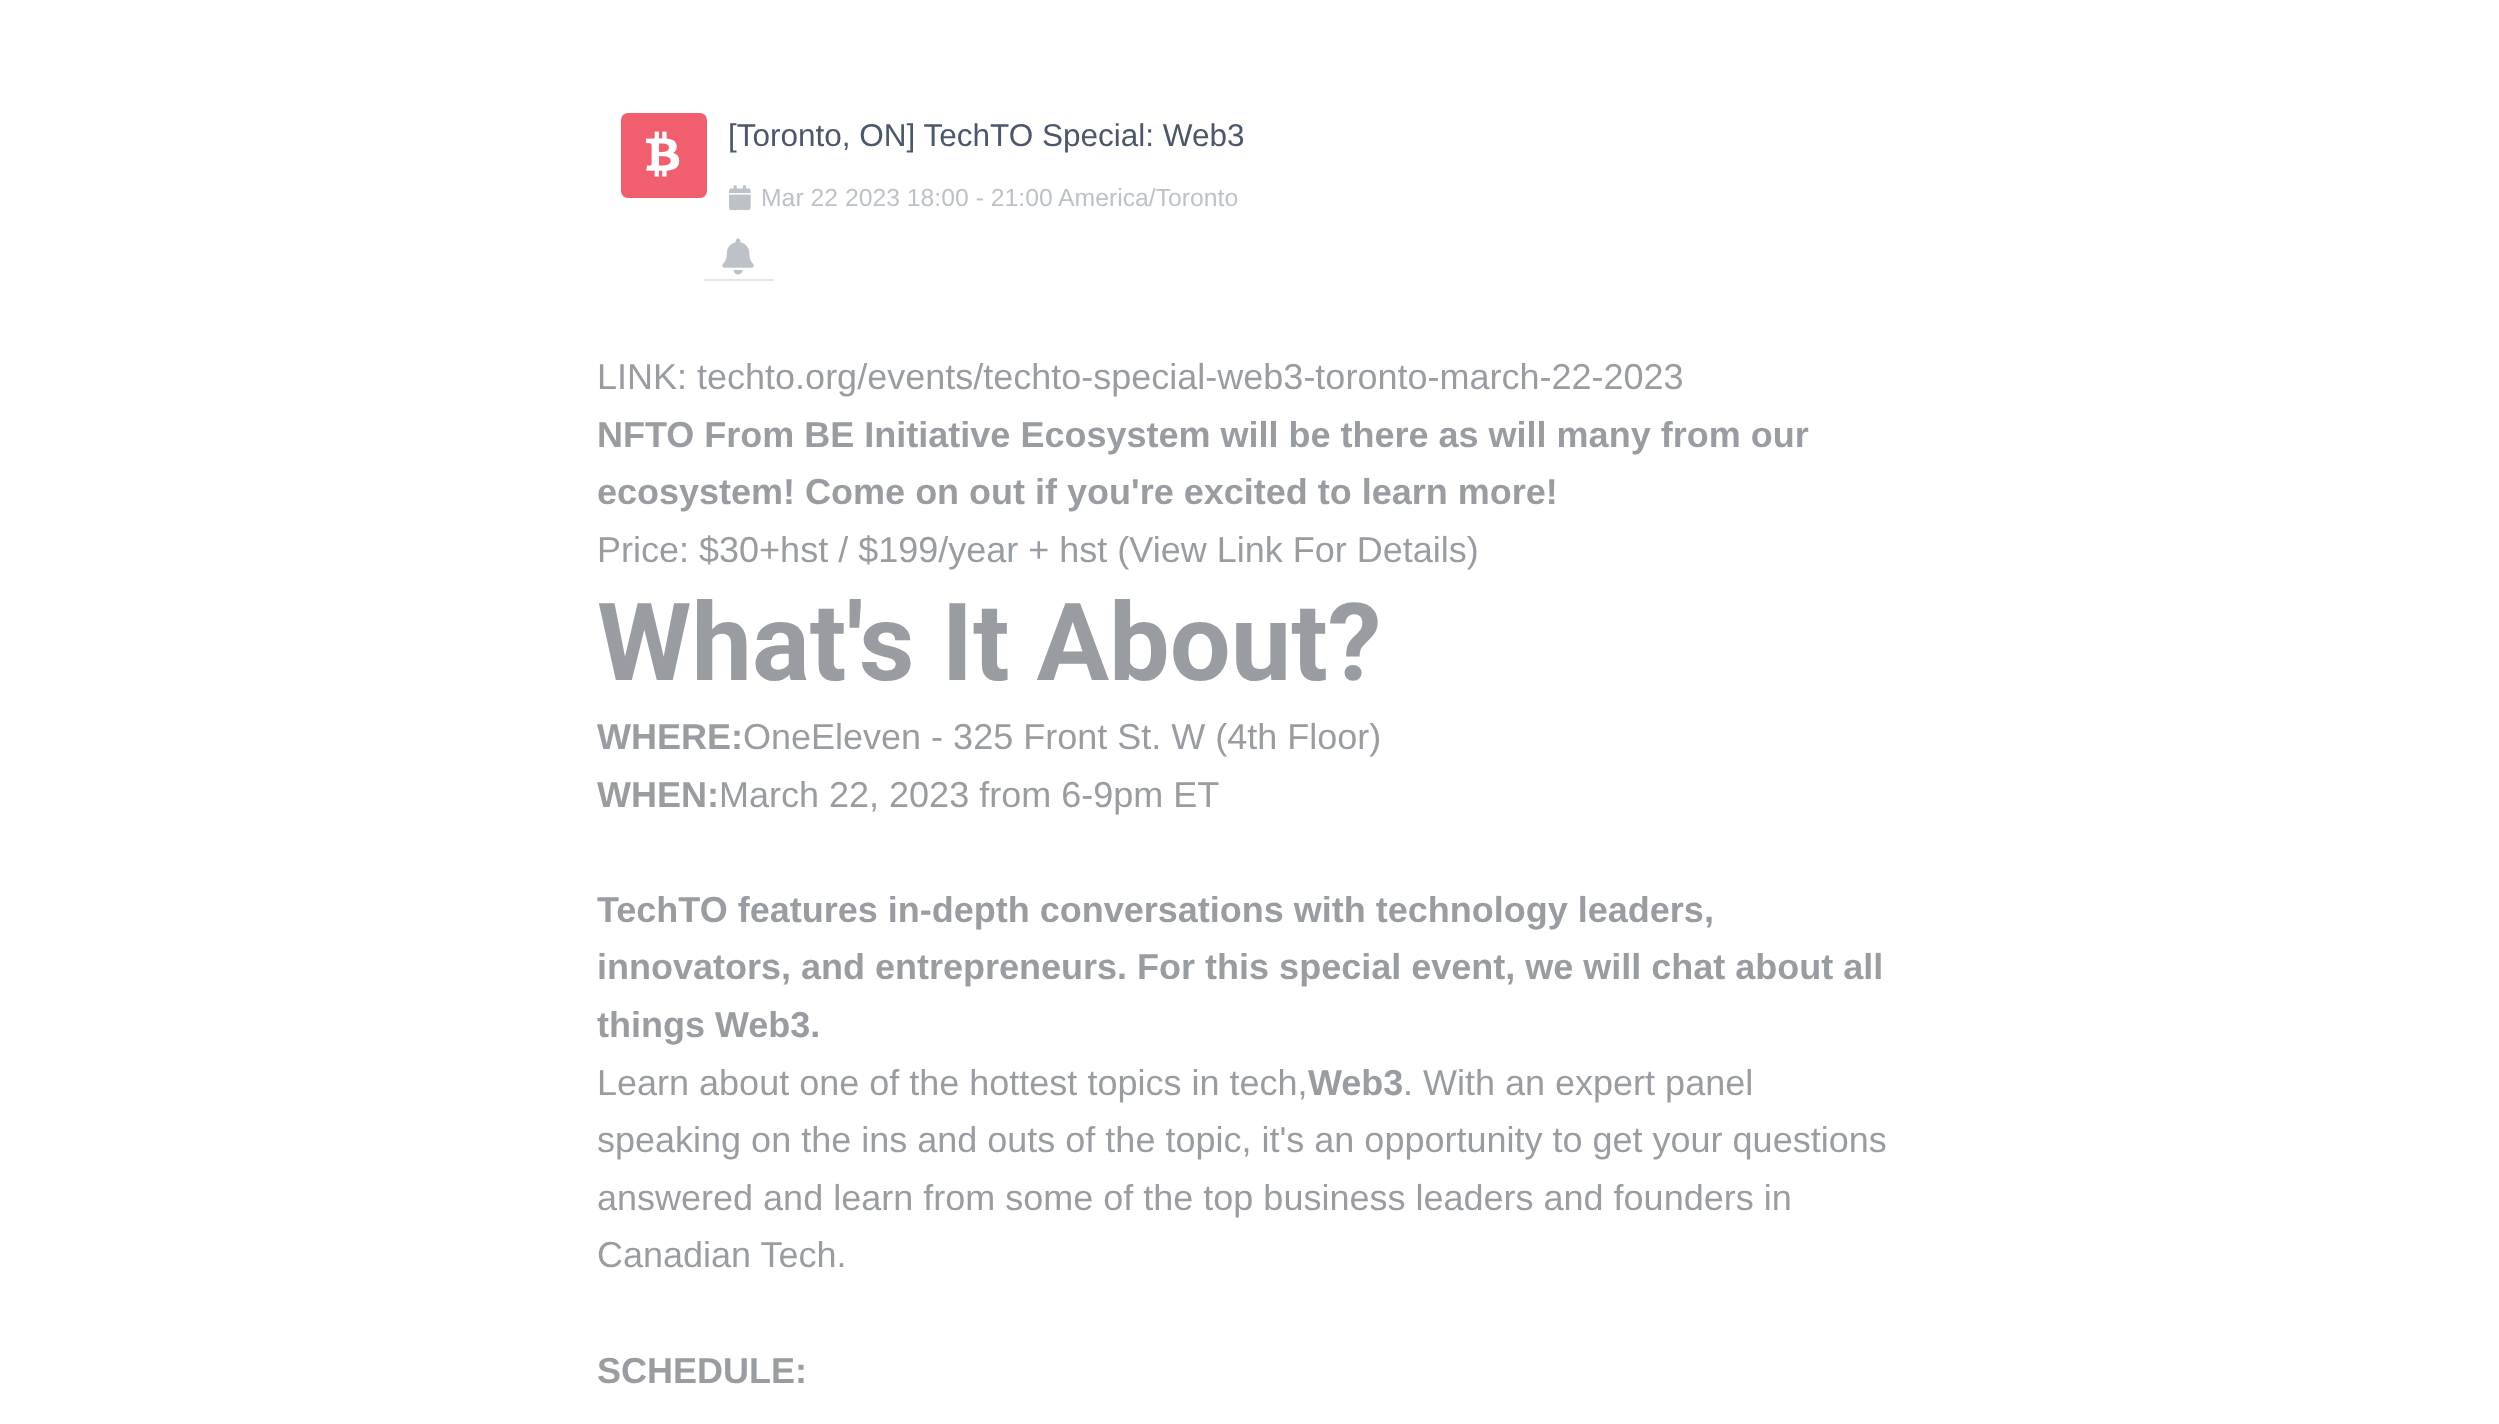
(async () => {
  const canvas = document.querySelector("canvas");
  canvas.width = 2499;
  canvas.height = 1424;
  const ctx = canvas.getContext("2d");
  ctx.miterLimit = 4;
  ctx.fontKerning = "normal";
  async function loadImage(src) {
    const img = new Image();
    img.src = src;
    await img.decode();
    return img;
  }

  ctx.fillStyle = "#ffffff";
  ctx.fillRect(0, 0, 2499, 1424);
  ctx.fillStyle = "#f15e6e";
  ctx.beginPath();
  ctx.roundRect(621, 113, 86, 85, 7);
  ctx.fill();
  ctx.drawImage(await loadImage("img/1.png"), 646, 131, 34, 46);
  ctx.drawImage(await loadImage("img/2.png"), 729, 185, 22, 26);
  ctx.fillStyle = "#e6e6e6";
  ctx.fillRect(704, 279, 70, 2);
  ctx.drawImage(await loadImage("img/3.png"), 722, 238, 32, 37);
  ctx.font = "31.5px Liberation Sans";
  ctx.fillStyle = "#4d576c";
  ctx.fillText("[Toronto, ON] TechTO Special: Web3", 728, 146);
  ctx.font = "24.75px Liberation Sans";
  ctx.fillStyle = "#bdc1c8";
  ctx.fillText("Mar 22 2023 18:00 - 21:00", 761, 206);
  ctx.fillText("America/Toronto", 1058, 206);
  ctx.font = "36px Liberation Sans";
  ctx.fillStyle = "#999da2";
  ctx.fillText("LINK: techto.org/events/techto-special-web3-toronto-march-22-2023", 597, 389);
  ctx.font = "bold 36px Liberation Sans";
  ctx.fillText("NFTO From BE Initiative Ecosystem will be there as will many from our", 597, 447);
  ctx.fillText("ecosystem! Come on out if you're excited to learn more!", 597, 504);
  ctx.font = "36px Liberation Sans";
  ctx.fillText("Price: $30+hst / $199/year + hst (View Link For Details)", 597, 562);
  ctx.font = "bold 108px Roboto";
  ctx.fillText("What's It About?", 597, 680);
  ctx.font = "bold 36px Liberation Sans";
  ctx.fillText("WHERE:", 597, 749);
  ctx.font = "36px Liberation Sans";
  ctx.fillText("OneEleven - 325 Front St. W (4th Floor)", 743, 749);
  ctx.font = "bold 36px Liberation Sans";
  ctx.fillText("WHEN:", 597, 807);
  ctx.font = "36px Liberation Sans";
  ctx.fillText("March 22, 2023 from 6-9pm ET", 719, 807);
  ctx.font = "bold 36px Liberation Sans";
  for (const [text, x, y] of [
    ["TechTO features in-depth conversations with technology leaders,", 597, 922],
    ["innovators, and entrepreneurs. For this special event, we will chat about all", 597, 979],
    ["things Web3.", 597, 1037],
  ]) {
    ctx.fillText(text, x, y);
  }
  ctx.font = "36px Liberation Sans";
  ctx.fillText("Learn about one of the hottest topics in tech,", 597, 1095);
  ctx.font = "bold 36px Liberation Sans";
  ctx.fillText("Web3", 1308, 1095);
  ctx.font = "36px Liberation Sans";
  for (const [text, x, y] of [
    [". With an expert panel", 1403, 1095],
    ["speaking on the ins and outs of the topic, it's an opportunity to get your questions", 597, 1152],
    ["answered and learn from some of the top business leaders and founders in", 597, 1210],
    ["Canadian Tech.", 597, 1267],
  ]) {
    ctx.fillText(text, x, y);
  }
  ctx.font = "bold 36px Liberation Sans";
  ctx.fillText("SCHEDULE:", 597, 1383);
})();
